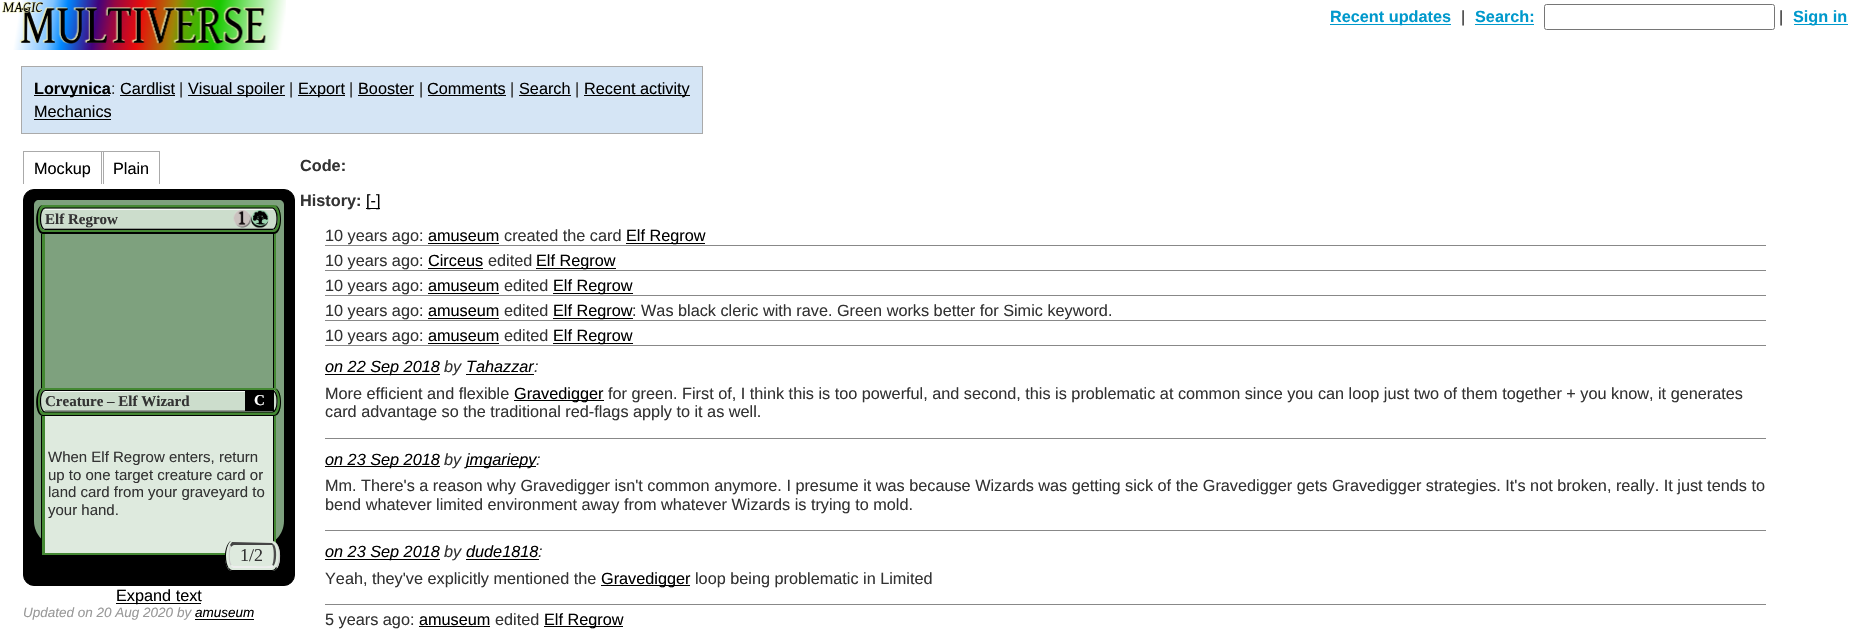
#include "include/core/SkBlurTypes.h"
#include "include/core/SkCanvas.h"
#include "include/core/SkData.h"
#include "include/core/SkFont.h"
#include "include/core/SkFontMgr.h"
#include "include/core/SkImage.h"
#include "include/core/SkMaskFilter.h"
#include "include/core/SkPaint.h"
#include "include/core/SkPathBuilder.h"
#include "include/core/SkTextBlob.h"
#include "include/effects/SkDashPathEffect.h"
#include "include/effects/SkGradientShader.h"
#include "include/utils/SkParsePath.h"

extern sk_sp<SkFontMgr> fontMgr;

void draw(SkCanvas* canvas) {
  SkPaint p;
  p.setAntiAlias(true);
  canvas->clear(SK_ColorWHITE);
  canvas->drawImageRect(SkImages::DeferredFromEncodedData(SkData::MakeFromFileName("images/1.png")), SkRect::MakeLTRB(2, 0, 286, 50), SkSamplingOptions());
  p.setColor(SkColorSetRGB(0, 153, 204));
  canvas->drawRect(SkRect::MakeLTRB(1330, 24, 1451, 25), p);
  canvas->drawRect(SkRect::MakeLTRB(1475, 24, 1534, 25), p);
  p.setStyle(SkPaint::kStroke_Style);
  p.setStrokeWidth(1);
  p.setColor(SkColorSetRGB(118, 118, 118));
  canvas->drawRoundRect(SkRect::MakeLTRB(1544.5f, 4.5f, 1774.5f, 29.5f), 2, 2, p);
  p.setStyle(SkPaint::kFill_Style);
  p.setColor(SkColorSetRGB(0, 153, 204));
  canvas->drawRect(SkRect::MakeLTRB(1794, 24, 1848, 25), p);
  p.setColor(SkColorSetRGB(213, 229, 245));
  canvas->drawRect(SkRect::MakeLTRB(21.5f, 66.5f, 702.5f, 133.5f), p);
  p.setStyle(SkPaint::kStroke_Style);
  p.setColor(SkColorSetRGB(170, 170, 170));
  canvas->drawRect(SkRect::MakeLTRB(21.5f, 66.5f, 702.5f, 133.5f), p);
  p.setStyle(SkPaint::kFill_Style);
  p.setColor(SK_ColorBLACK);
  canvas->drawRect(SkRect::MakeLTRB(34, 95, 110, 96), p);
  canvas->drawRect(SkRect::MakeLTRB(120, 95, 175, 96), p);
  canvas->drawRect(SkRect::MakeLTRB(188, 95, 285, 96), p);
  canvas->drawRect(SkRect::MakeLTRB(298, 95, 345, 96), p);
  canvas->drawRect(SkRect::MakeLTRB(358, 95, 414, 96), p);
  canvas->drawRect(SkRect::MakeLTRB(428, 95, 506, 96), p);
  canvas->drawRect(SkRect::MakeLTRB(519, 95, 571, 96), p);
  canvas->drawRect(SkRect::MakeLTRB(584, 95, 690, 96), p);
  canvas->drawRect(SkRect::MakeLTRB(34, 119, 111, 120), p);
  p.setColor(SkColorSetRGB(170, 170, 170));
  canvas->drawRect(SkRect::MakeLTRB(23, 151, 160, 152), p);
  canvas->drawRect(SkRect::MakeLTRB(101, 151, 102, 184), p);
  canvas->drawRect(SkRect::MakeLTRB(23, 151, 24, 184), p);
  canvas->drawRect(SkRect::MakeLTRB(159, 151, 160, 184), p);
  canvas->drawRect(SkRect::MakeLTRB(103, 151, 104, 184), p);
  p.setColor(SK_ColorBLACK);
  canvas->drawRoundRect(SkRect::MakeLTRB(23.5f, 189.5f, 294.5f, 585.5f), 10.5f, 10.5f, p);
  p.setStyle(SkPaint::kStroke_Style);
  canvas->drawRoundRect(SkRect::MakeLTRB(23.5f, 189.5f, 294.5f, 585.5f), 10.5f, 10.5f, p);
  p.setStyle(SkPaint::kFill_Style);
  p.setColor(SkColorSetRGB(126, 161, 126));
  canvas->drawPath(SkPathBuilder().moveTo(39, 200).lineTo(279, 200).cubicTo(282, 200, 284, 202, 284, 205).lineTo(284, 521).cubicTo(284, 535, 273, 546, 259, 546).lineTo(59, 546).cubicTo(45, 546, 34, 535, 34, 521).lineTo(34, 205).cubicTo(34, 202, 36, 200, 39, 200).close().detach(), p);
  p.setColor(SkColorSetRGB(68, 136, 51));
  canvas->drawPath(SkPathBuilder().moveTo(43, 205).lineTo(274, 205).cubicTo(280, 205, 281, 215, 281, 219).cubicTo(281, 223, 280, 234, 274, 234).lineTo(43, 234).cubicTo(34, 234, 34, 205, 43, 205).close().detach(), p);
  p.setColor(SK_ColorBLACK);
  canvas->drawPath(SkPathBuilder(SkPathFillType::kEvenOdd).moveTo(43, 205).lineTo(274, 205).cubicTo(280, 205, 281, 215, 281, 219).cubicTo(281, 223, 280, 234, 274, 234).lineTo(43, 234).cubicTo(34, 234, 34, 205, 43, 205).close().moveTo(43, 205).lineTo(274, 205).cubicTo(277, 205, 280, 211, 280, 219).cubicTo(280, 227, 277, 232, 274, 232).lineTo(43, 232).cubicTo(40, 232, 38, 227, 38, 219).cubicTo(38, 211, 40, 205, 43, 205).close().detach(), p);
  p.setColor(SkColorSetRGB(204, 221, 204));
  canvas->drawPath(SkPathBuilder().moveTo(45, 208).lineTo(274, 208).cubicTo(276, 209, 277, 213, 277, 215).cubicTo(278, 219, 278, 230, 272, 230).lineTo(45, 230).cubicTo(43, 230, 42, 228, 41, 227).cubicTo(40, 223, 39, 208, 45, 208).close().detach(), p);
  p.setStyle(SkPaint::kStroke_Style);
  p.setStrokeWidth(1.2f);
  p.setColor(SK_ColorBLACK);
  canvas->drawPath(SkPathBuilder().moveTo(45, 208).lineTo(272.5f, 208).cubicTo(275, 208, 277, 212.5f, 277, 217.5f).lineTo(277, 220).cubicTo(277, 225, 275, 229.5f, 272.5f, 229.5f).lineTo(45, 229.5f).cubicTo(42.5f, 229.5f, 40.5f, 225, 40.5f, 220).lineTo(40.5f, 217.5f).cubicTo(40.5f, 212.5f, 42.5f, 208, 45, 208).close().detach(), p);
  p.setStyle(SkPaint::kFill_Style);
  p.setColor(SkColorSetRGB(245, 248, 245));
  canvas->drawRect(SkRect::MakeLTRB(45, 209, 273, 210), p);
  canvas->drawImageRect(SkImages::DeferredFromEncodedData(SkData::MakeFromFileName("images/2.png")), SkRect::MakeLTRB(233, 210, 252, 228), SkSamplingOptions());
  canvas->drawImageRect(SkImages::DeferredFromEncodedData(SkData::MakeFromFileName("images/3.png")), SkRect::MakeLTRB(251, 210, 269, 228), SkSamplingOptions());
  p.setColor(SkColorSetARGB(128, 88, 88, 88));
  canvas->drawRect(SkRect::MakeLTRB(45, 228, 273, 229), p);
  p.setColor(SkColorSetRGB(68, 136, 51));
  canvas->drawRect(SkRect::MakeLTRB(42, 234, 276, 388), p);
  p.setColor(SK_ColorBLACK);
  canvas->drawRect(SkRect::MakeLTRB(41, 234, 42, 388), p);
  p.setColor(SkColorSetRGB(126, 161, 126));
  canvas->drawRect(SkRect::MakeLTRB(45, 234, 273, 388), p);
  p.setColor(SK_ColorBLACK);
  canvas->drawRect(SkRect::MakeLTRB(273, 234, 274, 388), p);
  p.setColor(SkColorSetRGB(68, 136, 51));
  canvas->drawPath(SkPathBuilder().moveTo(43, 388).lineTo(274, 388).cubicTo(280, 388, 281, 398, 281, 402).cubicTo(281, 406, 280, 416, 274, 416).lineTo(43, 416).cubicTo(34, 416, 34, 388, 43, 388).close().detach(), p);
  p.setColor(SK_ColorBLACK);
  canvas->drawPath(SkPathBuilder(SkPathFillType::kEvenOdd).moveTo(43, 388).lineTo(274, 388).cubicTo(280, 388, 281, 398, 281, 402).cubicTo(281, 406, 280, 416, 274, 416).lineTo(43, 416).cubicTo(34, 416, 34, 388, 43, 388).close().moveTo(43, 388).lineTo(274, 388).cubicTo(277, 388, 280, 394, 280, 402).cubicTo(280, 409, 277, 415, 274, 415).lineTo(43, 415).cubicTo(40, 415, 38, 409, 38, 402).cubicTo(38, 394, 40, 388, 43, 388).close().detach(), p);
  p.setColor(SkColorSetRGB(204, 221, 204));
  canvas->drawPath(SkPathBuilder().moveTo(45, 390).lineTo(274, 390).cubicTo(276, 391, 277, 395, 277, 398).cubicTo(278, 401, 278, 412, 272, 412).lineTo(45, 412).cubicTo(43, 412, 42, 411, 41, 410).cubicTo(40, 406, 39, 390, 45, 390).close().detach(), p);
  p.setStyle(SkPaint::kStroke_Style);
  p.setColor(SK_ColorBLACK);
  canvas->drawPath(SkPathBuilder().moveTo(45, 390.5f).lineTo(272.5f, 390.5f).cubicTo(275, 390.5f, 277, 395, 277, 400).lineTo(277, 402.5f).cubicTo(277, 407.5f, 275, 412, 272.5f, 412).lineTo(45, 412).cubicTo(42.5f, 412, 40.5f, 407.5f, 40.5f, 402.5f).lineTo(40.5f, 400).cubicTo(40.5f, 395, 42.5f, 390.5f, 45, 390.5f).close().detach(), p);
  p.setStyle(SkPaint::kFill_Style);
  p.setColor(SkColorSetARGB(204, 255, 255, 255));
  canvas->drawRect(SkRect::MakeLTRB(45, 391, 245, 392), p);
  p.setColor(SK_ColorBLACK);
  canvas->drawRect(SkRect::MakeLTRB(245, 390, 274, 411), p);
  p.setColor(SkColorSetRGB(146, 155, 146));
  canvas->drawRect(SkRect::MakeLTRB(45, 410, 245, 411), p);
  p.setColor(SkColorSetRGB(68, 136, 51));
  canvas->drawRect(SkRect::MakeLTRB(42, 416, 276, 555), p);
  p.setColor(SK_ColorBLACK);
  canvas->drawRect(SkRect::MakeLTRB(41, 416, 42, 540), p);
  p.setColor(SkColorSetRGB(222, 234, 222));
  canvas->drawRect(SkRect::MakeLTRB(45, 416, 273, 553), p);
  p.setColor(SK_ColorBLACK);
  canvas->drawRect(SkRect::MakeLTRB(273, 416, 274, 542), p);
  p.setColor(SkColorSetRGB(222, 234, 222));
  canvas->drawPath(SkPathBuilder().moveTo(232, 541).lineTo(272, 541).cubicTo(277, 541, 280, 548, 280, 556).cubicTo(280, 565, 277, 571, 272, 571).lineTo(232, 571).cubicTo(228, 571, 225, 565, 225, 556).cubicTo(225, 548, 228, 541, 232, 541).close().detach(), p);
  p.setColor(SkColorSetRGB(204, 204, 204));
  canvas->drawPath(SkPathBuilder().moveTo(276, 567.5f).cubicTo(280, 562, 280.5f, 544, 273.5f, 541).cubicTo(274.5f, 541, 275.5f, 542.5f, 276.5f, 543).cubicTo(281, 548.5f, 281.5f, 562.5f, 277, 568.5f).close().detach(), p);
  p.setColor(SK_ColorBLACK);
  canvas->drawPath(SkPathBuilder().moveTo(277, 568).cubicTo(276, 570, 274, 571, 272, 571).lineTo(232, 571).cubicTo(230, 571, 229, 570, 228, 568).lineTo(229, 568).cubicTo(230, 569, 231, 570, 232, 570).lineTo(272, 570).cubicTo(274, 570, 275, 569, 276, 567).close().detach(), p);
  canvas->drawPath(SkPathBuilder().moveTo(231, 541).cubicTo(228.5f, 542.5f, 226, 549, 226, 556).cubicTo(226, 561, 227, 565, 228.5f, 567.5f).lineTo(228, 568.5f).cubicTo(223.5f, 562.5f, 224, 549, 228.5f, 543).cubicTo(229, 542.5f, 230, 541, 231, 541).close().detach(), p);
  p.setColor(SkColorSetRGB(68, 68, 68));
  canvas->drawPath(SkPathBuilder().moveTo(234, 545).cubicTo(233, 545, 232, 546, 231, 547).lineTo(230, 545).lineTo(232, 542).lineTo(272, 543).lineTo(274, 545).lineTo(273, 546).lineTo(272, 545).close().detach(), p);
  p.setColor(SkColorSetRGB(76, 76, 76));
  canvas->drawPath(SkPathBuilder().moveTo(274, 544.5f).cubicTo(277, 548.5f, 277, 562, 273.5f, 566).lineTo(272, 565.5f).cubicTo(274, 562.5f, 274.5f, 550, 272.5f, 546).close().detach(), p);
  p.setColor(SkColorSetRGB(238, 238, 238));
  canvas->drawPath(SkPathBuilder().moveTo(233, 568).lineTo(231, 566).lineTo(232, 565).cubicTo(233, 566, 234, 566, 235, 566).lineTo(254, 566).cubicTo(257, 566, 271, 567, 272, 565).lineTo(274, 566).lineTo(272, 568).close().detach(), p);
  p.setColor(SkColorSetRGB(204, 204, 204));
  canvas->drawPath(SkPathBuilder().moveTo(230.5f, 565.5f).cubicTo(228, 562, 228.5f, 548.5f, 230, 545).lineTo(231, 547).cubicTo(229.5f, 550, 229, 561.5f, 231.5f, 564.5f).close().detach(), p);
  p.setColor(SK_ColorBLACK);
  canvas->drawRect(SkRect::MakeLTRB(116, 603, 201, 604), p);
  canvas->drawRect(SkRect::MakeLTRB(195, 619, 254, 620), p);
  canvas->drawRect(SkRect::MakeLTRB(366, 208, 380, 209), p);
  p.setColor(SkColorSetRGB(136, 136, 136));
  canvas->drawRect(SkRect::MakeLTRB(325, 245, 1766, 246), p);
  p.setColor(SK_ColorBLACK);
  canvas->drawRect(SkRect::MakeLTRB(428, 243, 499, 244), p);
  canvas->drawRect(SkRect::MakeLTRB(626, 243, 705, 244), p);
  p.setColor(SkColorSetRGB(136, 136, 136));
  canvas->drawRect(SkRect::MakeLTRB(325, 270, 1766, 271), p);
  p.setColor(SK_ColorBLACK);
  canvas->drawRect(SkRect::MakeLTRB(428, 268, 483, 269), p);
  canvas->drawRect(SkRect::MakeLTRB(536, 268, 616, 269), p);
  p.setColor(SkColorSetRGB(136, 136, 136));
  canvas->drawRect(SkRect::MakeLTRB(325, 295, 1766, 296), p);
  p.setColor(SK_ColorBLACK);
  canvas->drawRect(SkRect::MakeLTRB(428, 293, 499, 294), p);
  canvas->drawRect(SkRect::MakeLTRB(553, 293, 633, 294), p);
  p.setColor(SkColorSetRGB(136, 136, 136));
  canvas->drawRect(SkRect::MakeLTRB(325, 320, 1766, 321), p);
  p.setColor(SK_ColorBLACK);
  canvas->drawRect(SkRect::MakeLTRB(428, 318, 499, 319), p);
  canvas->drawRect(SkRect::MakeLTRB(553, 318, 633, 319), p);
  p.setColor(SkColorSetRGB(136, 136, 136));
  canvas->drawRect(SkRect::MakeLTRB(325, 345, 1766, 346), p);
  p.setColor(SK_ColorBLACK);
  canvas->drawRect(SkRect::MakeLTRB(428, 343, 499, 344), p);
  canvas->drawRect(SkRect::MakeLTRB(553, 343, 633, 344), p);
  p.setColor(SkColorSetRGB(136, 136, 136));
  canvas->drawRect(SkRect::MakeLTRB(325, 438, 1766, 439), p);
  p.setColor(SK_ColorBLACK);
  canvas->drawRect(SkRect::MakeLTRB(325, 374, 440, 375), p);
  canvas->drawRect(SkRect::MakeLTRB(466, 374, 534, 375), p);
  canvas->drawRect(SkRect::MakeLTRB(514, 400, 604, 401), p);
  p.setColor(SkColorSetRGB(136, 136, 136));
  canvas->drawRect(SkRect::MakeLTRB(325, 530, 1766, 531), p);
  p.setColor(SK_ColorBLACK);
  canvas->drawRect(SkRect::MakeLTRB(325, 466, 440, 467), p);
  canvas->drawRect(SkRect::MakeLTRB(466, 466, 536, 467), p);
  p.setColor(SkColorSetRGB(136, 136, 136));
  canvas->drawRect(SkRect::MakeLTRB(325, 604, 1766, 605), p);
  p.setColor(SK_ColorBLACK);
  canvas->drawRect(SkRect::MakeLTRB(325, 559, 440, 560), p);
  canvas->drawRect(SkRect::MakeLTRB(466, 559, 539, 560), p);
  canvas->drawRect(SkRect::MakeLTRB(601, 585, 690, 586), p);
  canvas->drawRect(SkRect::MakeLTRB(419, 626, 490, 627), p);
  canvas->drawRect(SkRect::MakeLTRB(544, 626, 623, 627), p);
  SkFont font1(fontMgr->matchFamilyStyle("Liberation Sans", SkFontStyle::Bold()), 16.25f);
  font1.setSubpixel(true);
  p.setColor(SkColorSetRGB(0, 153, 204));
  canvas->drawString("Recent updates", 1330, 22, font1, p);
  SkFont font2(fontMgr->matchFamilyStyle("Liberation Sans", SkFontStyle::Normal()), 16.25f);
  font2.setSubpixel(true);
  p.setColor(SkColorSetRGB(51, 51, 51));
  canvas->drawString("|", 1461, 22, font2, p);
  p.setColor(SkColorSetRGB(0, 153, 204));
  canvas->drawString("Search:", 1475, 22, font1, p);
  p.setColor(SkColorSetRGB(51, 51, 51));
  canvas->drawString("|", 1779, 22, font2, p);
  p.setColor(SkColorSetRGB(0, 153, 204));
  canvas->drawString("Sign in", 1793, 22, font1, p);
  p.setColor(SK_ColorBLACK);
  canvas->drawString("Lorvynica", 34, 94, font1, p);
  p.setColor(SkColorSetRGB(51, 51, 51));
  canvas->drawString(":", 111, 94, font2, p);
  p.setColor(SK_ColorBLACK);
  canvas->drawString("Cardlist", 120, 94, font2, p);
  p.setColor(SkColorSetRGB(51, 51, 51));
  canvas->drawString("|", 179, 94, font2, p);
  p.setColor(SK_ColorBLACK);
  canvas->drawString("Visual spoiler", 188, 94, font2, p);
  p.setColor(SkColorSetRGB(51, 51, 51));
  canvas->drawString("|", 289, 94, font2, p);
  p.setColor(SK_ColorBLACK);
  canvas->drawString("Export", 298, 94, font2, p);
  p.setColor(SkColorSetRGB(51, 51, 51));
  canvas->drawString("|", 349, 94, font2, p);
  p.setColor(SK_ColorBLACK);
  canvas->drawString("Booster", 358, 94, font2, p);
  p.setColor(SkColorSetRGB(51, 51, 51));
  canvas->drawString("|", 419, 94, font2, p);
  p.setColor(SK_ColorBLACK);
  canvas->drawString("Comments", 427, 94, font2, p);
  p.setColor(SkColorSetRGB(51, 51, 51));
  canvas->drawString("|", 510, 94, font2, p);
  p.setColor(SK_ColorBLACK);
  canvas->drawString("Search", 519, 94, font2, p);
  p.setColor(SkColorSetRGB(51, 51, 51));
  canvas->drawString("|", 575, 94, font2, p);
  p.setColor(SK_ColorBLACK);
  canvas->drawString("Recent activity", 584, 94, font2, p);
  canvas->drawString("Mechanics", 34, 117, font2, p);
  canvas->drawString("Mockup", 34, 174, font2, p);
  canvas->drawString("Plain", 113, 174, font2, p);
  SkFont font3(fontMgr->matchFamilyStyle("Liberation Serif", SkFontStyle::Bold()), 15);
  font3.setSubpixel(true);
  p.setColor(SkColorSetRGB(51, 51, 51));
  canvas->drawString("Elf Regrow", 45, 224, font3, p);
  canvas->drawString("Creature – Elf Wizard", 45, 406, font3, p);
  p.setColor(SK_ColorWHITE);
  canvas->drawString("C", 254, 405, font3, p);
  SkFont font4(fontMgr->matchFamilyStyle("Liberation Sans", SkFontStyle::Normal()), 15);
  font4.setSubpixel(true);
  p.setColor(SkColorSetRGB(51, 51, 51));
  canvas->drawString("When Elf Regrow enters, return", 48, 462, font4, p);
  canvas->drawString("up to one target creature card or", 48, 480, font4, p);
  canvas->drawString("land card from your graveyard to", 48, 497, font4, p);
  canvas->drawString("your hand.", 48, 515, font4, p);
  SkFont font5(fontMgr->matchFamilyStyle("Liberation Serif", SkFontStyle::Normal()), 18);
  font5.setSubpixel(true);
  canvas->drawString("1/2", 240, 561, font5, p);
  p.setColor(SK_ColorBLACK);
  canvas->drawString("Expand text", 116, 601, font2, p);
  SkFont font6(fontMgr->matchFamilyStyle("Liberation Sans", SkFontStyle::Italic()), 13.5f);
  font6.setSubpixel(true);
  p.setColor(SkColorSetRGB(153, 153, 153));
  canvas->drawString("Updated on 20 Aug 2020 by", 23, 617, font6, p);
  p.setColor(SK_ColorBLACK);
  canvas->drawString("amuseum", 195, 617, font6, p);
  p.setColor(SkColorSetRGB(51, 51, 51));
  canvas->drawString("Code:", 300, 171, font1, p);
  canvas->drawString("History:", 300, 206, font1, p);
  p.setColor(SK_ColorBLACK);
  canvas->drawString("[-]", 366, 206, font2, p);
  p.setColor(SkColorSetRGB(51, 51, 51));
  canvas->drawString("10 years ago:", 325, 241, font2, p);
  p.setColor(SK_ColorBLACK);
  canvas->drawString("amuseum", 428, 241, font2, p);
  p.setColor(SkColorSetRGB(51, 51, 51));
  canvas->drawString("created the card", 504, 241, font2, p);
  p.setColor(SK_ColorBLACK);
  canvas->drawString("Elf Regrow", 626, 241, font2, p);
  p.setColor(SkColorSetRGB(51, 51, 51));
  canvas->drawString("10 years ago:", 325, 266, font2, p);
  p.setColor(SK_ColorBLACK);
  canvas->drawString("Circeus", 428, 266, font2, p);
  p.setColor(SkColorSetRGB(51, 51, 51));
  canvas->drawString("edited", 488, 266, font2, p);
  p.setColor(SK_ColorBLACK);
  canvas->drawString("Elf Regrow", 536, 266, font2, p);
  p.setColor(SkColorSetRGB(51, 51, 51));
  canvas->drawString("10 years ago:", 325, 291, font2, p);
  p.setColor(SK_ColorBLACK);
  canvas->drawString("amuseum", 428, 291, font2, p);
  p.setColor(SkColorSetRGB(51, 51, 51));
  canvas->drawString("edited", 504, 291, font2, p);
  p.setColor(SK_ColorBLACK);
  canvas->drawString("Elf Regrow", 553, 291, font2, p);
  p.setColor(SkColorSetRGB(51, 51, 51));
  canvas->drawString("10 years ago:", 325, 316, font2, p);
  p.setColor(SK_ColorBLACK);
  canvas->drawString("amuseum", 428, 316, font2, p);
  p.setColor(SkColorSetRGB(51, 51, 51));
  canvas->drawString("edited", 504, 316, font2, p);
  p.setColor(SK_ColorBLACK);
  canvas->drawString("Elf Regrow", 553, 316, font2, p);
  p.setColor(SkColorSetRGB(51, 51, 51));
  canvas->drawString(": Was black cleric with rave. Green works better for Simic keyword.", 632, 316, font2, p);
  canvas->drawString("10 years ago:", 325, 341, font2, p);
  p.setColor(SK_ColorBLACK);
  canvas->drawString("amuseum", 428, 341, font2, p);
  p.setColor(SkColorSetRGB(51, 51, 51));
  canvas->drawString("edited", 504, 341, font2, p);
  p.setColor(SK_ColorBLACK);
  canvas->drawString("Elf Regrow", 553, 341, font2, p);
  SkFont font7(fontMgr->matchFamilyStyle("Liberation Sans", SkFontStyle::Italic()), 16.25f);
  font7.setSubpixel(true);
  canvas->drawString("on 22 Sep 2018", 325, 372, font7, p);
  p.setColor(SkColorSetRGB(51, 51, 51));
  canvas->drawString("by", 444, 372, font7, p);
  p.setColor(SK_ColorBLACK);
  canvas->drawString("Tahazzar", 466, 372, font7, p);
  p.setColor(SkColorSetRGB(51, 51, 51));
  canvas->drawString(":", 534, 372, font7, p);
  canvas->drawString("More efficient and flexible", 325, 399, font2, p);
  p.setColor(SK_ColorBLACK);
  canvas->drawString("Gravedigger", 514, 399, font2, p);
  p.setColor(SkColorSetRGB(51, 51, 51));
  canvas->drawString("for green. First of, I think this is too powerful, and second, this is problematic at common since you can loop just two of them together + you know, it generates", 608, 399, font2, p);
  canvas->drawString("card advantage so the traditional red-flags apply to it as well.", 325, 417, font2, p);
  p.setColor(SK_ColorBLACK);
  canvas->drawString("on 23 Sep 2018", 325, 465, font7, p);
  p.setColor(SkColorSetRGB(51, 51, 51));
  canvas->drawString("by", 444, 465, font7, p);
  p.setColor(SK_ColorBLACK);
  canvas->drawString("jmgariepy", 466, 465, font7, p);
  p.setColor(SkColorSetRGB(51, 51, 51));
  canvas->drawString(":", 536, 465, font7, p);
  canvas->drawString("Mm. There's a reason why Gravedigger isn't common anymore. I presume it was because Wizards was getting sick of the Gravedigger gets Gravedigger strategies. It's not broken, really. It just tends to", 325, 491, font2, p);
  canvas->drawString("bend whatever limited environment away from whatever Wizards is trying to mold.", 325, 510, font2, p);
  p.setColor(SK_ColorBLACK);
  canvas->drawString("on 23 Sep 2018", 325, 557, font7, p);
  p.setColor(SkColorSetRGB(51, 51, 51));
  canvas->drawString("by", 444, 557, font7, p);
  p.setColor(SK_ColorBLACK);
  canvas->drawString("dude1818", 466, 557, font7, p);
  p.setColor(SkColorSetRGB(51, 51, 51));
  canvas->drawString(":", 538, 557, font7, p);
  canvas->drawString("Yeah, they've explicitly mentioned the", 325, 584, font2, p);
  p.setColor(SK_ColorBLACK);
  canvas->drawString("Gravedigger", 601, 584, font2, p);
  p.setColor(SkColorSetRGB(51, 51, 51));
  canvas->drawString("loop being problematic in Limited", 695, 584, font2, p);
  canvas->drawString("5 years ago:", 325, 625, font2, p);
  p.setColor(SK_ColorBLACK);
  canvas->drawString("amuseum", 419, 625, font2, p);
  p.setColor(SkColorSetRGB(51, 51, 51));
  canvas->drawString("edited", 495, 625, font2, p);
  p.setColor(SK_ColorBLACK);
  canvas->drawString("Elf Regrow", 544, 625, font2, p);
}
